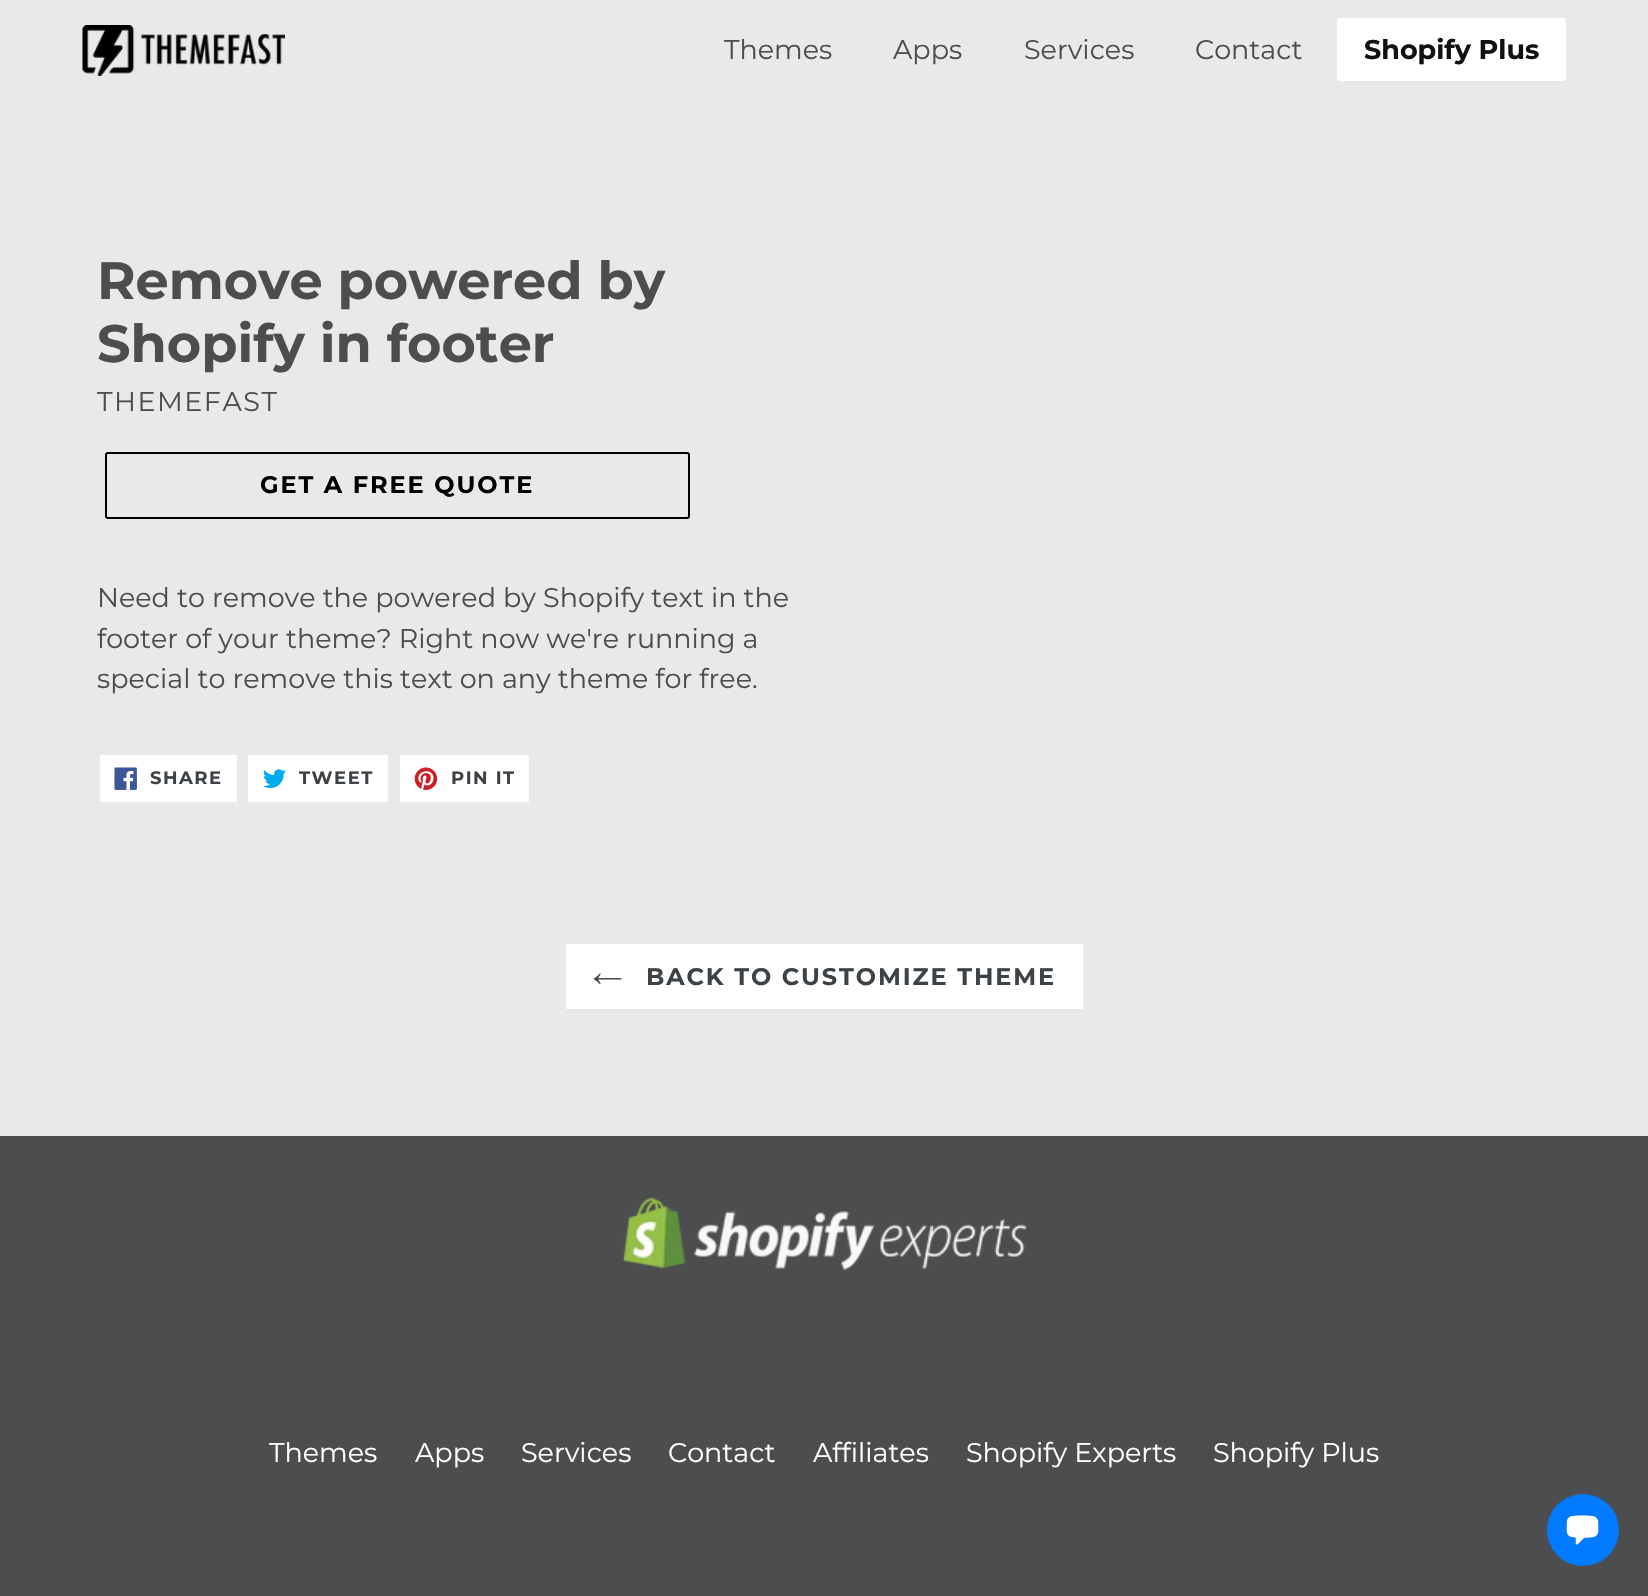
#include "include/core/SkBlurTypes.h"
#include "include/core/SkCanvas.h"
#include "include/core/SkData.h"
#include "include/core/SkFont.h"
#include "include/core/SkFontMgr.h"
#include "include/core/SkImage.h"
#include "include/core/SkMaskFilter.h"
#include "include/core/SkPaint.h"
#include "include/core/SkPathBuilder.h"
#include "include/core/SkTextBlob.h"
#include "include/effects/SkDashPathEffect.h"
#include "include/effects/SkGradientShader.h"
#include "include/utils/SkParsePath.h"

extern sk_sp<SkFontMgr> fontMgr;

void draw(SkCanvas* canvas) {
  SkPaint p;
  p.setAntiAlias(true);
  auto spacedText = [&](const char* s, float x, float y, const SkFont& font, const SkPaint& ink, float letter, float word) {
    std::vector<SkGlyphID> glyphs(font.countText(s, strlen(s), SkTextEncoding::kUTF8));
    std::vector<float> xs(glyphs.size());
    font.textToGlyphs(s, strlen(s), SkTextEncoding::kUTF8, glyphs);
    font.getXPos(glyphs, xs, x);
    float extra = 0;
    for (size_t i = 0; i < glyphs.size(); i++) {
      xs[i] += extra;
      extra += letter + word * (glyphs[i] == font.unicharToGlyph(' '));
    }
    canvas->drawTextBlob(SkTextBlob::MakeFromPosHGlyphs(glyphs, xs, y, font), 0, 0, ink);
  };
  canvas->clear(SkColorSetRGB(232, 233, 235));
  canvas->drawImageRect(SkImages::DeferredFromEncodedData(SkData::MakeFromFileName("images/1.png")), SkRect::MakeLTRB(82, 25, 285, 76), SkSamplingOptions());
  p.setColor(SK_ColorWHITE);
  canvas->drawRoundRect(SkRect::MakeLTRB(1337, 18, 1566, 81), 3, 3, p);
  p.setStyle(SkPaint::kStroke_Style);
  p.setStrokeWidth(2);
  p.setColor(SK_ColorBLACK);
  canvas->drawRoundRect(SkRect::MakeLTRB(106, 453, 689, 518), 2, 2, p);
  p.setStyle(SkPaint::kFill_Style);
  p.setColor(SK_ColorWHITE);
  canvas->drawRoundRect(SkRect::MakeLTRB(99, 754, 238, 803), 2, 2, p);
  p.setStyle(SkPaint::kStroke_Style);
  p.setColor(SkColorSetRGB(232, 233, 235));
  canvas->drawRoundRect(SkRect::MakeLTRB(99, 754, 238, 803), 2, 2, p);
  canvas->drawImageRect(SkImages::DeferredFromEncodedData(SkData::MakeFromFileName("images/2.png")), SkRect::MakeLTRB(114, 767, 137, 790), SkSamplingOptions());
  p.setStyle(SkPaint::kFill_Style);
  p.setColor(SK_ColorWHITE);
  canvas->drawRoundRect(SkRect::MakeLTRB(247, 754, 389, 803), 2, 2, p);
  p.setStyle(SkPaint::kStroke_Style);
  p.setColor(SkColorSetRGB(232, 233, 235));
  canvas->drawRoundRect(SkRect::MakeLTRB(247, 754, 389, 803), 2, 2, p);
  canvas->drawImageRect(SkImages::DeferredFromEncodedData(SkData::MakeFromFileName("images/3.png")), SkRect::MakeLTRB(263, 769, 286, 789), SkSamplingOptions());
  p.setStyle(SkPaint::kFill_Style);
  p.setColor(SK_ColorWHITE);
  canvas->drawRoundRect(SkRect::MakeLTRB(399, 754, 530, 803), 2, 2, p);
  p.setStyle(SkPaint::kStroke_Style);
  p.setColor(SkColorSetRGB(232, 233, 235));
  canvas->drawRoundRect(SkRect::MakeLTRB(399, 754, 530, 803), 2, 2, p);
  canvas->drawImageRect(SkImages::DeferredFromEncodedData(SkData::MakeFromFileName("images/4.png")), SkRect::MakeLTRB(414, 767, 438, 790), SkSamplingOptions());
  p.setStyle(SkPaint::kFill_Style);
  p.setColor(SK_ColorWHITE);
  canvas->drawRoundRect(SkRect::MakeLTRB(565, 943, 1084, 1010), 2, 2, p);
  p.setStyle(SkPaint::kStroke_Style);
  p.setColor(SkColorSetRGB(232, 233, 235));
  canvas->drawRoundRect(SkRect::MakeLTRB(565, 943, 1084, 1010), 2, 2, p);
  canvas->drawImageRect(SkImages::DeferredFromEncodedData(SkData::MakeFromFileName("images/5.png")), SkRect::MakeLTRB(593, 973, 622, 985), SkSamplingOptions());
  p.setStyle(SkPaint::kFill_Style);
  p.setColor(SkColorSetRGB(76, 77, 79));
  canvas->drawRect(SkRect::MakeLTRB(0, 1136, 1648, 1596), p);
  canvas->drawImageRect(SkImages::DeferredFromEncodedData(SkData::MakeFromFileName("images/6.png")), SkRect::MakeLTRB(622, 1197, 1027, 1271), SkSamplingOptions());
  p.setColor(SkColorSetRGB(0, 123, 255));
  canvas->drawCircle(1583, 1530, 36, p);
  canvas->drawImageRect(SkImages::DeferredFromEncodedData(SkData::MakeFromFileName("images/7.png")), SkRect::MakeLTRB(1566, 1515, 1599, 1545), SkSamplingOptions());
  SkFont font1(fontMgr->matchFamilyStyle("Montserrat", SkFontStyle::Normal()), 27);
  font1.setSubpixel(true);
  p.setColor(SkColorSetRGB(76, 77, 79));
  canvas->drawString("Themes", 724, 59, font1, p);
  canvas->drawString("Apps", 893, 59, font1, p);
  canvas->drawString("Services", 1024, 59, font1, p);
  canvas->drawString("Contact", 1195, 59, font1, p);
  SkFont font2(fontMgr->matchFamilyStyle("Montserrat", SkFontStyle::Bold()), 27);
  font2.setSubpixel(true);
  p.setColor(SkColorSetRGB(17, 17, 17));
  canvas->drawString("Shopify Plus", 1364, 59, font2, p);
  SkFont font3(fontMgr->matchFamilyStyle("Montserrat", SkFontStyle::Bold()), 52.5f);
  font3.setSubpixel(true);
  p.setColor(SkColorSetRGB(76, 77, 79));
  canvas->drawString("Remove powered by", 97, 299, font3, p);
  canvas->drawString("Shopify in footer", 97, 362, font3, p);
  spacedText("THEMEFAST", 97, 411, font1, p, 1.5f, 0);
  SkFont font4(fontMgr->matchFamilyStyle("Montserrat", SkFontStyle::Bold()), 24);
  font4.setSubpixel(true);
  p.setColor(SK_ColorBLACK);
  spacedText("GET A FREE QUOTE", 260, 493, font4, p, 1.9f, 0);
  p.setColor(SkColorSetRGB(76, 77, 79));
  canvas->drawString("Need to remove the powered by Shopify text in the", 97, 607, font1, p);
  canvas->drawString("footer of your theme? Right now we're running a", 97, 648, font1, p);
  canvas->drawString("special to remove this text on any theme for free.", 97, 688, font1, p);
  SkFont font5(fontMgr->matchFamilyStyle("Montserrat", SkFontStyle::Bold()), 18);
  font5.setSubpixel(true);
  p.setColor(SkColorSetRGB(61, 66, 70));
  spacedText("SHARE", 150, 784, font5, p, 1.5f, 0);
  spacedText("TWEET", 299, 784, font5, p, 1.5f, 0);
  spacedText("PIN IT", 451, 784, font5, p, 1.5f, 0);
  spacedText("BACK TO CUSTOMIZE THEME", 646, 985, font4, p, 1.9f, 0);
  p.setColor(SK_ColorWHITE);
  canvas->drawString("Themes", 269, 1462, font1, p);
  canvas->drawString("Apps", 415, 1462, font1, p);
  canvas->drawString("Services", 521, 1462, font1, p);
  canvas->drawString("Contact", 668, 1462, font1, p);
  canvas->drawString("Affiliates", 813, 1462, font1, p);
  canvas->drawString("Shopify Experts", 966, 1462, font1, p);
  canvas->drawString("Shopify Plus", 1213, 1462, font1, p);
}
